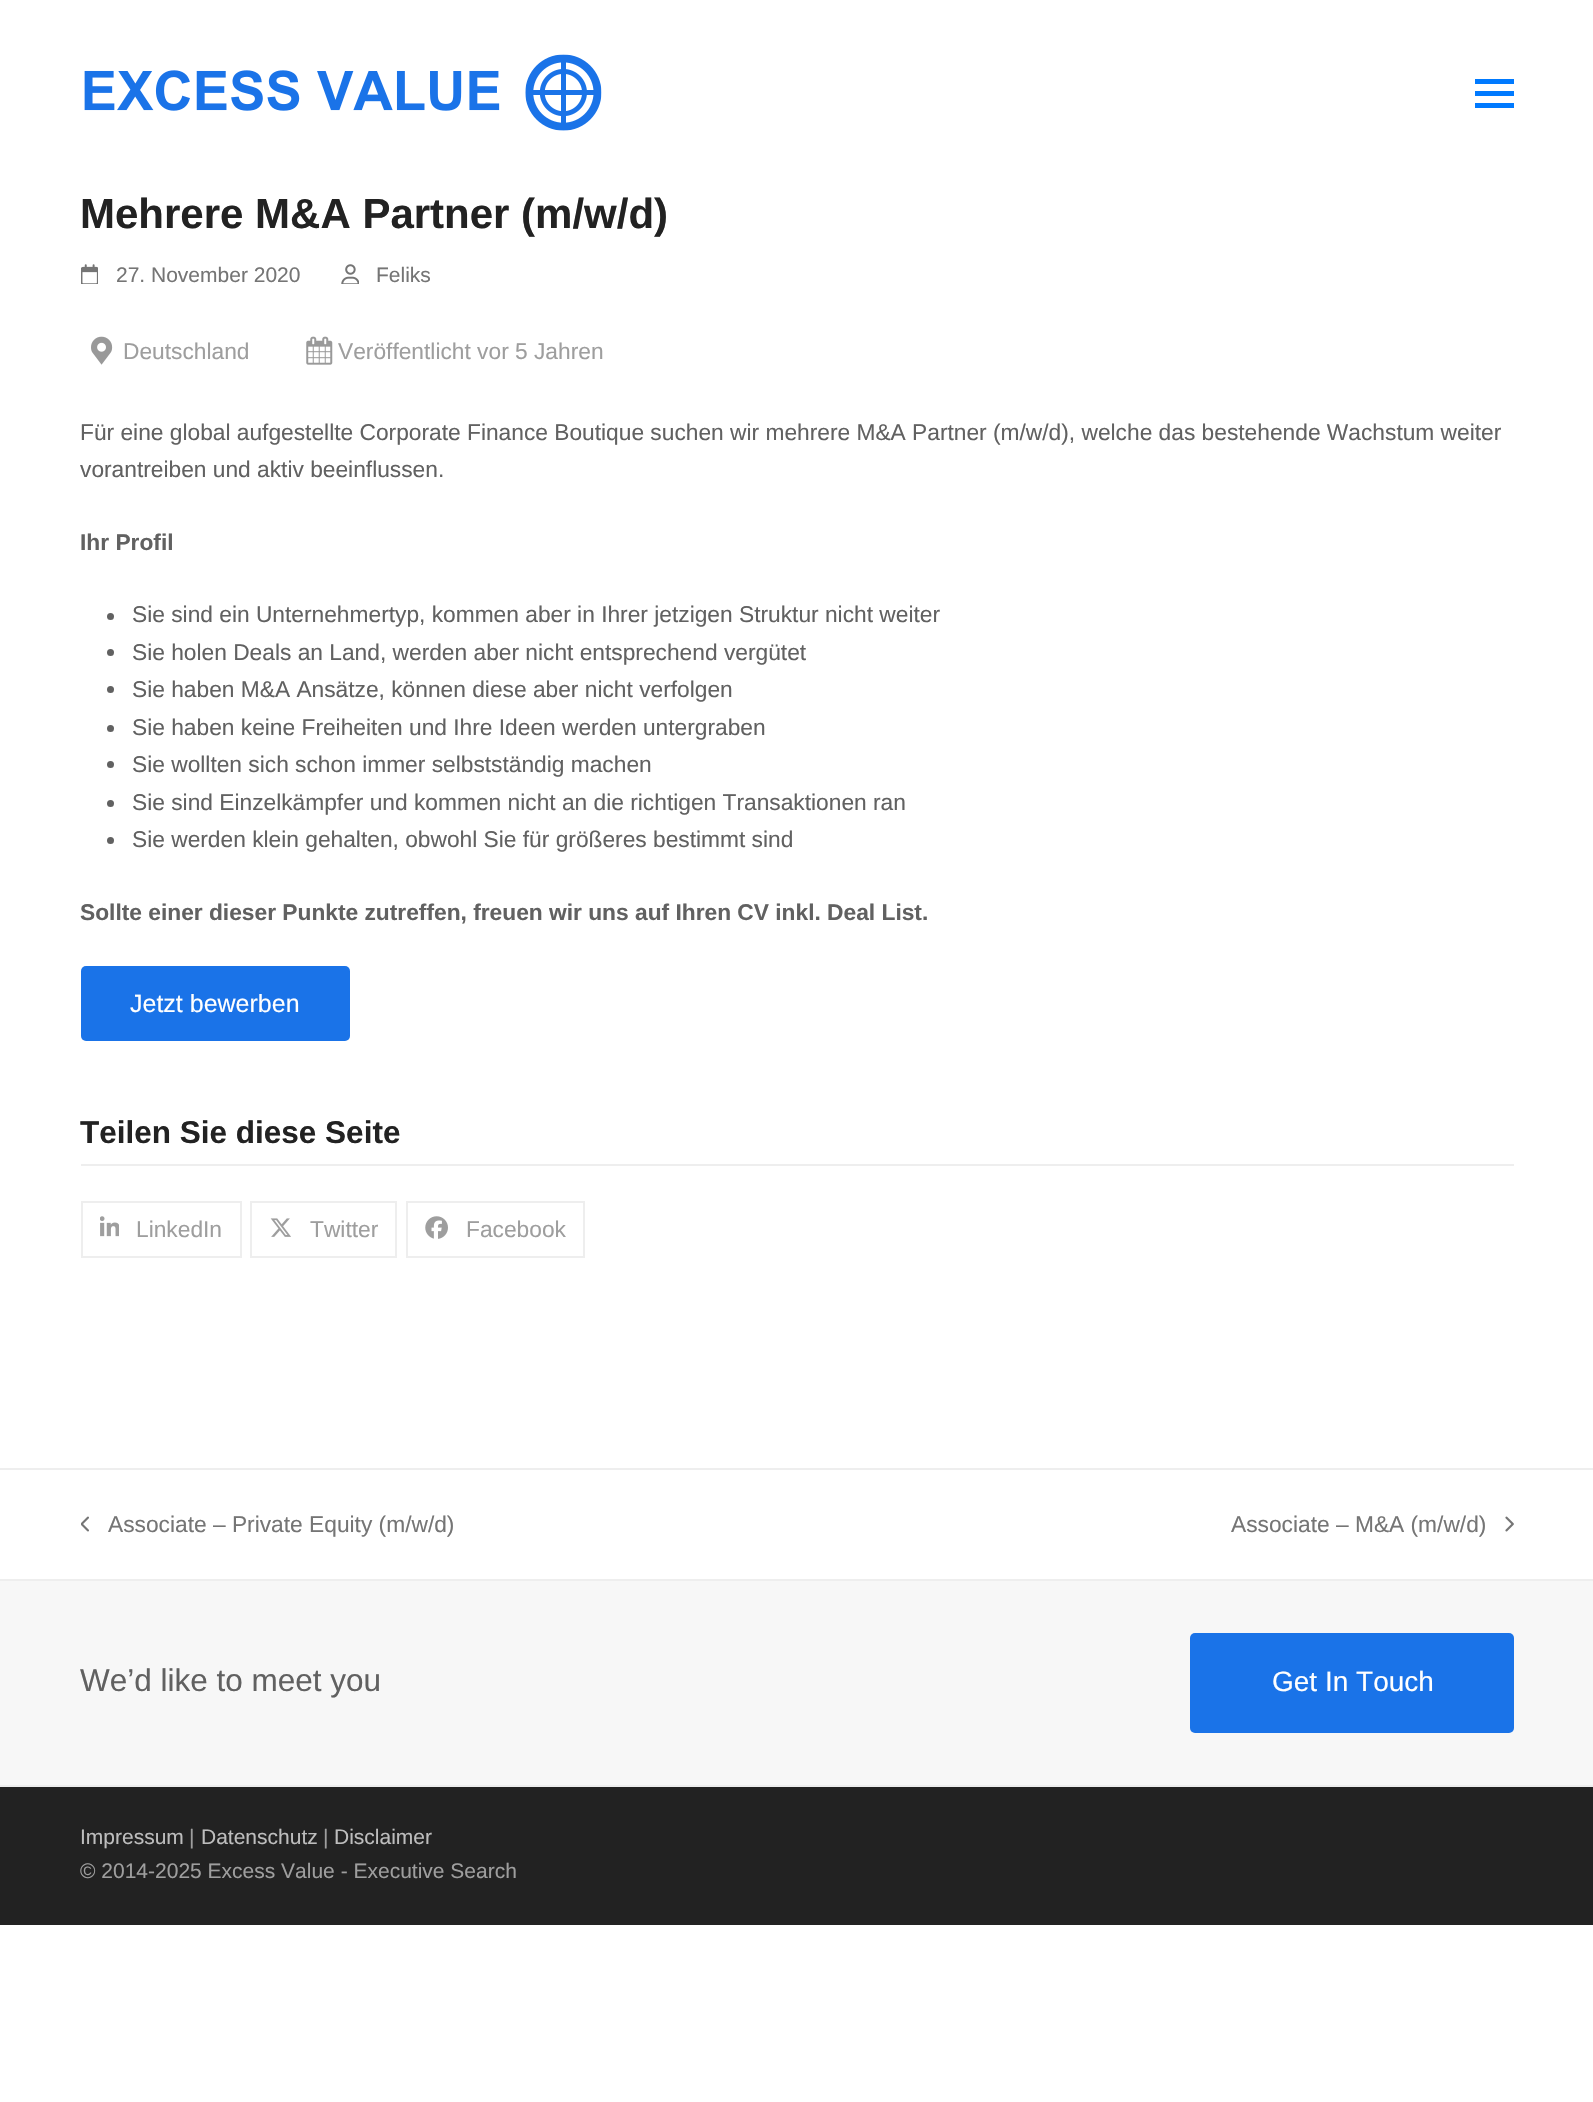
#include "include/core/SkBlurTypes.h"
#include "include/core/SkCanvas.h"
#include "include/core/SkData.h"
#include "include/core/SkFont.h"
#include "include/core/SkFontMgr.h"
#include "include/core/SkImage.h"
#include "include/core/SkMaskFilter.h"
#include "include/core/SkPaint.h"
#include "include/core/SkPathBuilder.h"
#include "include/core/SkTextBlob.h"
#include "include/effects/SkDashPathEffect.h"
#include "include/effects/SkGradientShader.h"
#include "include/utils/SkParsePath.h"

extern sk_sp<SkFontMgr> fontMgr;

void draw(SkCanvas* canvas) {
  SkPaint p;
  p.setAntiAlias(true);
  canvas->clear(SK_ColorWHITE);
  canvas->drawImageRect(SkImages::DeferredFromEncodedData(SkData::MakeFromFileName("images/1.png")), SkRect::MakeLTRB(84, 54, 602, 131), SkSamplingOptions());
  p.setColor(SkColorSetRGB(0, 122, 255));
  canvas->drawRect(SkRect::MakeLTRB(1475, 91, 1514, 96), p);
  canvas->drawRect(SkRect::MakeLTRB(1475, 79, 1514, 84), p);
  canvas->drawRect(SkRect::MakeLTRB(1475, 103, 1514, 108), p);
  canvas->drawImageRect(SkImages::DeferredFromEncodedData(SkData::MakeFromFileName("images/2.png")), SkRect::MakeLTRB(81, 264, 98, 284), SkSamplingOptions());
  canvas->drawImageRect(SkImages::DeferredFromEncodedData(SkData::MakeFromFileName("images/3.png")), SkRect::MakeLTRB(341, 264, 359, 284), SkSamplingOptions());
  canvas->drawImageRect(SkImages::DeferredFromEncodedData(SkData::MakeFromFileName("images/4.png")), SkRect::MakeLTRB(91, 336, 113, 365), SkSamplingOptions());
  canvas->drawImageRect(SkImages::DeferredFromEncodedData(SkData::MakeFromFileName("images/5.png")), SkRect::MakeLTRB(306, 336, 333, 365), SkSamplingOptions());
  p.setColor(SkColorSetRGB(97, 97, 97));
  canvas->drawCircle(110.5f, 616.5f, 3.5f, p);
  canvas->drawCircle(110.5f, 652.5f, 3.5f, p);
  canvas->drawCircle(110.5f, 689.5f, 3.5f, p);
  canvas->drawCircle(110.5f, 728.5f, 3.5f, p);
  canvas->drawCircle(110.5f, 764.5f, 3.5f, p);
  canvas->drawCircle(110.5f, 803.5f, 3.5f, p);
  canvas->drawCircle(110.5f, 840.5f, 3.5f, p);
  p.setColor(SkColorSetRGB(26, 115, 232));
  canvas->drawRoundRect(SkRect::MakeLTRB(81, 966, 350, 1041), 5, 5, p);
  p.setColor(SkColorSetRGB(238, 238, 238));
  canvas->drawRect(SkRect::MakeLTRB(81, 1164, 1514, 1166), p);
  p.setStyle(SkPaint::kStroke_Style);
  p.setStrokeWidth(2);
  canvas->drawRect(SkRect::MakeLTRB(82, 1202, 241, 1257), p);
  canvas->drawImageRect(SkImages::DeferredFromEncodedData(SkData::MakeFromFileName("images/6.png")), SkRect::MakeLTRB(100, 1216, 119, 1237), SkSamplingOptions());
  canvas->drawRect(SkRect::MakeLTRB(251, 1202, 396, 1257), p);
  canvas->drawImageRect(SkImages::DeferredFromEncodedData(SkData::MakeFromFileName("images/7.png")), SkRect::MakeLTRB(270, 1218, 291, 1237), SkSamplingOptions());
  canvas->drawRect(SkRect::MakeLTRB(407, 1202, 584, 1257), p);
  canvas->drawImageRect(SkImages::DeferredFromEncodedData(SkData::MakeFromFileName("images/8.png")), SkRect::MakeLTRB(425, 1216, 448, 1239), SkSamplingOptions());
  p.setStyle(SkPaint::kFill_Style);
  canvas->drawRect(SkRect::MakeLTRB(0, 1468, 1593, 1470), p);
  canvas->drawImageRect(SkImages::DeferredFromEncodedData(SkData::MakeFromFileName("images/9.png")), SkRect::MakeLTRB(81, 1516, 89, 1532), SkSamplingOptions());
  canvas->drawImageRect(SkImages::DeferredFromEncodedData(SkData::MakeFromFileName("images/10.png")), SkRect::MakeLTRB(1505, 1516, 1514, 1532), SkSamplingOptions());
  p.setColor(SkColorSetRGB(247, 247, 247));
  canvas->drawRect(SkRect::MakeLTRB(0, 1581, 1593, 1785), p);
  p.setColor(SkColorSetRGB(238, 238, 238));
  canvas->drawRect(SkRect::MakeLTRB(0, 1579, 1593, 1581), p);
  canvas->drawRect(SkRect::MakeLTRB(0, 1785, 1593, 1787), p);
  p.setColor(SkColorSetRGB(26, 115, 232));
  canvas->drawRoundRect(SkRect::MakeLTRB(1190, 1633, 1514, 1733), 5, 5, p);
  p.setColor(SkColorSetRGB(34, 34, 34));
  canvas->drawRect(SkRect::MakeLTRB(0, 1787, 1593, 1925), p);
  SkFont font1(fontMgr->matchFamilyStyle("Liberation Sans", SkFontStyle::Bold()), 42);
  font1.setSubpixel(true);
  canvas->drawString("Mehrere M&A Partner (m/w/d)", 80, 228, font1, p);
  SkFont font2(fontMgr->matchFamilyStyle("Liberation Sans", SkFontStyle::Normal()), 21);
  font2.setSubpixel(true);
  p.setColor(SkColorSetRGB(117, 117, 117));
  canvas->drawString("27. November 2020", 116, 282, font2, p);
  canvas->drawString("Feliks", 376, 282, font2, p);
  SkFont font3(fontMgr->matchFamilyStyle("Liberation Sans", SkFontStyle::Normal()), 22.75f);
  font3.setSubpixel(true);
  p.setColor(SkColorSetRGB(158, 158, 158));
  canvas->drawString("Deutschland", 123, 359, font3, p);
  canvas->drawString("Veröffentlicht vor 5 Jahren", 338, 359, font3, p);
  p.setColor(SkColorSetRGB(97, 97, 97));
  canvas->drawString("Für eine global aufgestellte Corporate Finance Boutique suchen wir mehrere M&A Partner (m/w/d), welche das bestehende Wachstum weiter", 80, 440, font3, p);
  canvas->drawString("vorantreiben und aktiv beeinflussen.", 80, 477, font3, p);
  SkFont font4(fontMgr->matchFamilyStyle("Liberation Sans", SkFontStyle::Bold()), 22.75f);
  font4.setSubpixel(true);
  canvas->drawString("Ihr Profil", 80, 550, font4, p);
  canvas->drawString("Sie sind ein Unternehmertyp, kommen aber in Ihrer jetzigen Struktur nicht weiter", 132, 622, font3, p);
  canvas->drawString("Sie holen Deals an Land, werden aber nicht entsprechend vergütet", 132, 660, font3, p);
  canvas->drawString("Sie haben M&A Ansätze, können diese aber nicht verfolgen", 132, 697, font3, p);
  canvas->drawString("Sie haben keine Freiheiten und Ihre Ideen werden untergraben", 132, 735, font3, p);
  canvas->drawString("Sie wollten sich schon immer selbstständig machen", 132, 772, font3, p);
  canvas->drawString("Sie sind Einzelkämpfer und kommen nicht an die richtigen Transaktionen ran", 132, 810, font3, p);
  canvas->drawString("Sie werden klein gehalten, obwohl Sie für größeres bestimmt sind", 132, 847, font3, p);
  canvas->drawString("Sollte einer dieser Punkte zutreffen, freuen wir uns auf Ihren CV inkl. Deal List.", 80, 920, font4, p);
  SkFont font5(fontMgr->matchFamilyStyle("Liberation Sans", SkFontStyle::Normal()), 25);
  font5.setSubpixel(true);
  p.setColor(SK_ColorWHITE);
  canvas->drawString("Jetzt bewerben", 130, 1012, font5, p);
  SkFont font6(fontMgr->matchFamilyStyle("Liberation Sans", SkFontStyle::Bold()), 31.5f);
  font6.setSubpixel(true);
  p.setColor(SkColorSetRGB(34, 34, 34));
  canvas->drawString("Teilen Sie diese Seite", 80, 1143, font6, p);
  p.setColor(SkColorSetRGB(158, 158, 158));
  canvas->drawString("LinkedIn", 136, 1237, font3, p);
  canvas->drawString("Twitter", 310, 1237, font3, p);
  canvas->drawString("Facebook", 466, 1237, font3, p);
  p.setColor(SkColorSetRGB(117, 117, 117));
  canvas->drawString("Associate – Private Equity (m/w/d)", 108, 1532, font3, p);
  canvas->drawString("Associate – M&A (m/w/d)", 1231, 1532, font3, p);
  SkFont font7(fontMgr->matchFamilyStyle("Liberation Sans", SkFontStyle::Normal()), 31.5f);
  font7.setSubpixel(true);
  p.setColor(SkColorSetRGB(97, 97, 97));
  canvas->drawString("We’d like to meet you", 80, 1691, font7, p);
  SkFont font8(fontMgr->matchFamilyStyle("Liberation Sans", SkFontStyle::Normal()), 28);
  font8.setSubpixel(true);
  p.setColor(SK_ColorWHITE);
  canvas->drawString("Get In Touch", 1272, 1691, font8, p);
  p.setColor(SkColorSetRGB(189, 189, 189));
  canvas->drawString("Impressum", 80, 1844, font2, p);
  p.setColor(SkColorSetRGB(158, 158, 158));
  canvas->drawString("|", 189, 1844, font2, p);
  p.setColor(SkColorSetRGB(189, 189, 189));
  canvas->drawString("Datenschutz", 201, 1844, font2, p);
  p.setColor(SkColorSetRGB(158, 158, 158));
  canvas->drawString("|", 323, 1844, font2, p);
  p.setColor(SkColorSetRGB(189, 189, 189));
  canvas->drawString("Disclaimer", 334, 1844, font2, p);
  p.setColor(SkColorSetRGB(158, 158, 158));
  canvas->drawString("© 2014-2025 Excess Value - Executive Search", 80, 1878, font2, p);
}
